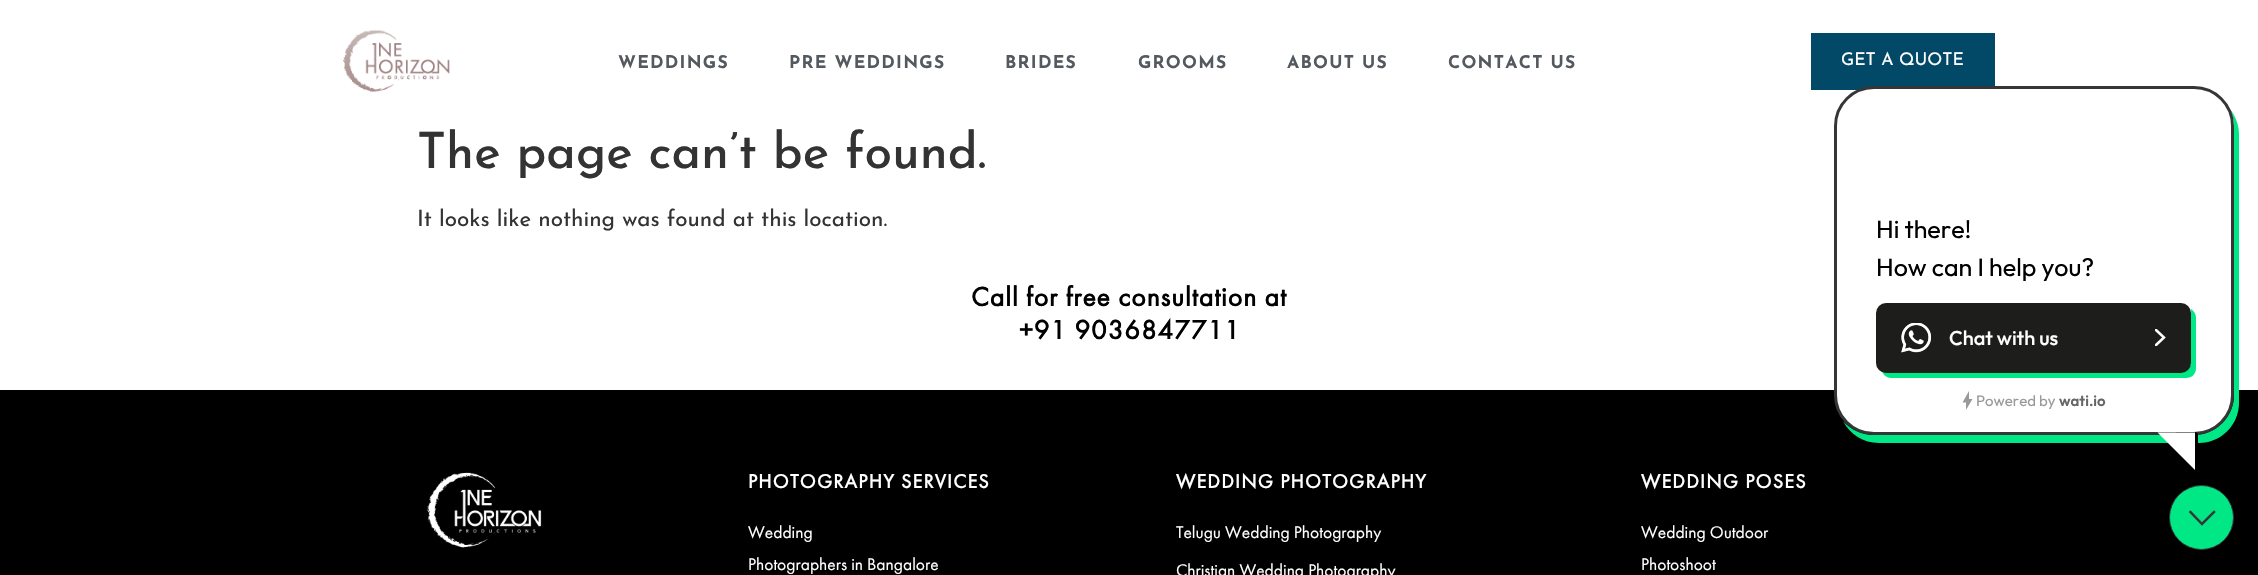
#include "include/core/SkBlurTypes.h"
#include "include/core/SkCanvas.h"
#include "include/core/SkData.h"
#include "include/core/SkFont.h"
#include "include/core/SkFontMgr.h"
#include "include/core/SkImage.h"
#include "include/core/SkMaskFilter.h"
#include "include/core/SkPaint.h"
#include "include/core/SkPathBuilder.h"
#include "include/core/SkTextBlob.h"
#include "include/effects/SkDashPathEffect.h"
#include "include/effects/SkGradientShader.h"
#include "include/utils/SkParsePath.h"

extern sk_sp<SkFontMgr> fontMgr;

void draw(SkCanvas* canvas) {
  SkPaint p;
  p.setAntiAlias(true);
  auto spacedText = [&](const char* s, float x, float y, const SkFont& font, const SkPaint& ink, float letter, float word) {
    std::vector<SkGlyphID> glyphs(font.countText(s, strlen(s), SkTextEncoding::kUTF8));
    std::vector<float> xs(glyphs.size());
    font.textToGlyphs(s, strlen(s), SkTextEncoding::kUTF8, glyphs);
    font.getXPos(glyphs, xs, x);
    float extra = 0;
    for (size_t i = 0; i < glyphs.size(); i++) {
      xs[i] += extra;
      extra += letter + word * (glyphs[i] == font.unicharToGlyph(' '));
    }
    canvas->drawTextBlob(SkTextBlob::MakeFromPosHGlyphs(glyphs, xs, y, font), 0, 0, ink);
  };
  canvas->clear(SK_ColorWHITE);
  canvas->drawImageRect(SkImages::DeferredFromEncodedData(SkData::MakeFromFileName("images/1.png")), SkRect::MakeLTRB(343, 30, 450, 92), SkSamplingOptions());
  p.setColor(SkColorSetRGB(1, 73, 102));
  canvas->drawRect(SkRect::MakeLTRB(1811, 33, 1995, 90), p);
  p.setColor(SK_ColorBLACK);
  canvas->drawRect(SkRect::MakeLTRB(0, 390, 2258, 575), p);
  canvas->drawImageRect(SkImages::DeferredFromEncodedData(SkData::MakeFromFileName("images/2.png")), SkRect::MakeLTRB(426, 472, 542, 548), SkSamplingOptions());
  p.setColor(SkColorSetRGB(0, 231, 133));
  canvas->drawPath(SkPathBuilder().moveTo(1843, 421).cubicTo(1850, 434, 1863, 443, 1879, 443).lineTo(2199, 443).cubicTo(2221, 443, 2239, 425, 2239, 403).lineTo(2239, 134).cubicTo(2239, 124, 2235, 115, 2229, 108).cubicTo(2232, 113, 2234, 120, 2234, 126).lineTo(2234, 395).cubicTo(2234, 417, 2216, 435, 2194, 435).lineTo(1874, 435).cubicTo(1861, 435, 1850, 429, 1843, 421).close().detach(), p);
  p.setColor(SK_ColorWHITE);
  canvas->drawRoundRect(SkRect::MakeLTRB(1835.5f, 87.5f, 2232.5f, 433.5f), 38.5f, 38.5f, p);
  p.setStyle(SkPaint::kStroke_Style);
  p.setStrokeWidth(3);
  p.setColor(SkColorSetRGB(54, 54, 54));
  canvas->drawRoundRect(SkRect::MakeLTRB(1835.5f, 87.5f, 2232.5f, 433.5f), 38.5f, 38.5f, p);
  p.setStyle(SkPaint::kFill_Style);
  p.setColor(SkColorSetRGB(0, 231, 133));
  canvas->drawPath(SkPathBuilder().moveTo(1882, 371).cubicTo(1883, 375, 1887, 378, 1891, 378).lineTo(2186, 378).cubicTo(2192, 378, 2196, 374, 2196, 368).lineTo(2196, 318).cubicTo(2196, 314, 2194, 311, 2191, 309).lineTo(2191, 312).lineTo(2191, 362).cubicTo(2191, 368, 2187, 372, 2181, 372).lineTo(1886, 372).cubicTo(1885, 372, 1883, 372, 1882, 371).close().detach(), p);
  p.setColor(SkColorSetRGB(29, 29, 27));
  canvas->drawRoundRect(SkRect::MakeLTRB(1876, 303, 2191, 373), 10, 10, p);
  canvas->drawImageRect(SkImages::DeferredFromEncodedData(SkData::MakeFromFileName("images/3.png")), SkRect::MakeLTRB(1901, 323, 1931, 353), SkSamplingOptions());
  canvas->save();
  canvas->clipRect(SkRect::MakeLTRB(2155, 329, 2166, 346));
  p.setStyle(SkPaint::kStroke_Style);
  p.setStrokeWidth(2.5f);
  p.setStrokeCap(SkPaint::kRound_Cap);
  p.setColor(SK_ColorWHITE);
  canvas->drawPath(SkPathBuilder().moveTo(2156, 330).lineTo(2164, 337.5f).lineTo(2156, 345).detach(), p);
  canvas->restore();
  p.setStyle(SkPaint::kFill_Style);
  p.setColor(SkColorSetRGB(153, 153, 153));
  canvas->drawPath(SkPathBuilder().moveTo(1966, 410).lineTo(1966, 402.5f).lineTo(1962.5f, 402.5f).lineTo(1969, 391).lineTo(1969, 399).lineTo(1972.5f, 399).close().detach(), p);
  p.setColor(SK_ColorBLACK);
  canvas->drawPath(SkPathBuilder().moveTo(2198, 474).lineTo(2197, 474).lineTo(2176, 454).lineTo(2176, 432).lineTo(2196, 432).lineTo(2198, 434).close().detach(), p);
  p.setColor(SK_ColorWHITE);
  canvas->drawPath(SkPathBuilder().moveTo(2195, 432.5f).lineTo(2195, 470).lineTo(2157.5f, 432.5f).close().detach(), p);
  p.setColor(SkColorSetRGB(0, 231, 133));
  canvas->drawCircle(2201.5f, 517.5f, 32, p);
  p.setStyle(SkPaint::kStroke_Style);
  p.setStrokeWidth(1);
  p.setStrokeCap(SkPaint::kButt_Cap);
  p.setColor(SkColorSetRGB(54, 54, 54));
  canvas->drawCircle(2201.5f, 517.5f, 32, p);
  p.setStrokeWidth(2.5f);
  p.setStrokeCap(SkPaint::kSquare_Cap);
  canvas->drawPath(SkPathBuilder().moveTo(2190.5f, 512).lineTo(2202, 524).lineTo(2214, 512).detach(), p);
  SkFont font1(fontMgr->matchFamilyStyle("Josefin Sans", SkFontStyle::Bold()), 17.5f);
  font1.setSubpixel(true);
  p.setStyle(SkPaint::kFill_Style);
  p.setColor(SkColorSetRGB(84, 89, 95));
  spacedText("WEDDINGS", 618, 68, font1, p, 1.25f, 0);
  spacedText("PRE WEDDINGS", 789, 68, font1, p, 1.25f, 0);
  spacedText("BRIDES", 1005, 68, font1, p, 1.25f, 0);
  spacedText("GROOMS", 1138, 68, font1, p, 1.25f, 0);
  spacedText("ABOUT US", 1287, 68, font1, p, 1.25f, 0);
  spacedText("CONTACT US", 1448, 68, font1, p, 1.25f, 0);
  SkFont font2(fontMgr->matchFamilyStyle("Josefin Sans", SkFontStyle::Normal()), 17.5f);
  font2.setSubpixel(true);
  p.setColor(SK_ColorWHITE);
  canvas->drawString("GET A QUOTE", 1841, 65, font2, p);
  SkFont font3(fontMgr->matchFamilyStyle("Josefin Sans", SkFontStyle(500, SkFontStyle::kNormal_Width, SkFontStyle::kUpright_Slant)), 50);
  font3.setSubpixel(true);
  p.setColor(SkColorSetRGB(51, 51, 51));
  canvas->drawString("The page can’t be found.", 417, 168, font3, p);
  SkFont font4(fontMgr->matchFamilyStyle("Josefin Sans", SkFontStyle::Normal()), 22.5f);
  font4.setSubpixel(true);
  canvas->drawString("It looks like nothing was found at this location.", 417, 226, font4, p);
  SkFont font5(fontMgr->matchFamilyStyle("Futura PT", SkFontStyle::Bold()), 27.5f);
  font5.setSubpixel(true);
  p.setColor(SK_ColorBLACK);
  spacedText("Call for free consultation at", 971, 306, font5, p, 1, 0);
  spacedText("+91 9036847711", 1019, 339, font5, p, 1, 0);
  SkFont font6(fontMgr->matchFamilyStyle("Futura PT", SkFontStyle::Bold()), 20);
  font6.setSubpixel(true);
  p.setColor(SK_ColorWHITE);
  spacedText("PHOTOGRAPHY SERVICES", 748, 488, font6, p, 1.25f, 0);
  SkFont font7(fontMgr->matchFamilyStyle("Futura PT", SkFontStyle::Normal()), 17.5f);
  font7.setSubpixel(true);
  canvas->drawString("Wedding", 748, 538, font7, p);
  canvas->drawString("Photographers in Bangalore", 748, 570, font7, p);
  spacedText("WEDDING PHOTOGRAPHY", 1176, 488, font6, p, 1.25f, 0);
  canvas->drawString("Telugu Wedding Photography", 1176, 538, font7, p);
  canvas->drawString("Christian Wedding Photography", 1176, 576, font7, p);
  spacedText("WEDDING POSES", 1641, 488, font6, p, 1.25f, 0);
  canvas->drawString("Wedding Outdoor", 1641, 538, font7, p);
  canvas->drawString("Photoshoot", 1641, 570, font7, p);
  SkFont font8(fontMgr->matchFamilyStyle("Outfit", SkFontStyle::Normal()), 25);
  font8.setSubpixel(true);
  p.setColor(SK_ColorBLACK);
  canvas->drawString("Hi there!", 1876, 238, font8, p);
  canvas->drawString("How can I help you?", 1876, 276, font8, p);
  SkFont font9(fontMgr->matchFamilyStyle("Outfit", SkFontStyle(500, SkFontStyle::kNormal_Width, SkFontStyle::kUpright_Slant)), 20);
  font9.setSubpixel(true);
  p.setColor(SK_ColorWHITE);
  canvas->drawString("Chat with us", 1949, 345, font9, p);
  SkFont font10(fontMgr->matchFamilyStyle("Outfit", SkFontStyle::Normal()), 15);
  font10.setSubpixel(true);
  p.setColor(SkColorSetRGB(153, 153, 153));
  canvas->drawString("Powered by", 1976, 406, font10, p);
  SkFont font11(fontMgr->matchFamilyStyle("Outfit", SkFontStyle(600, SkFontStyle::kNormal_Width, SkFontStyle::kUpright_Slant)), 15);
  font11.setSubpixel(true);
  p.setColor(SkColorSetRGB(102, 102, 102));
  canvas->drawString("wati.io", 2059, 406, font11, p);
}
